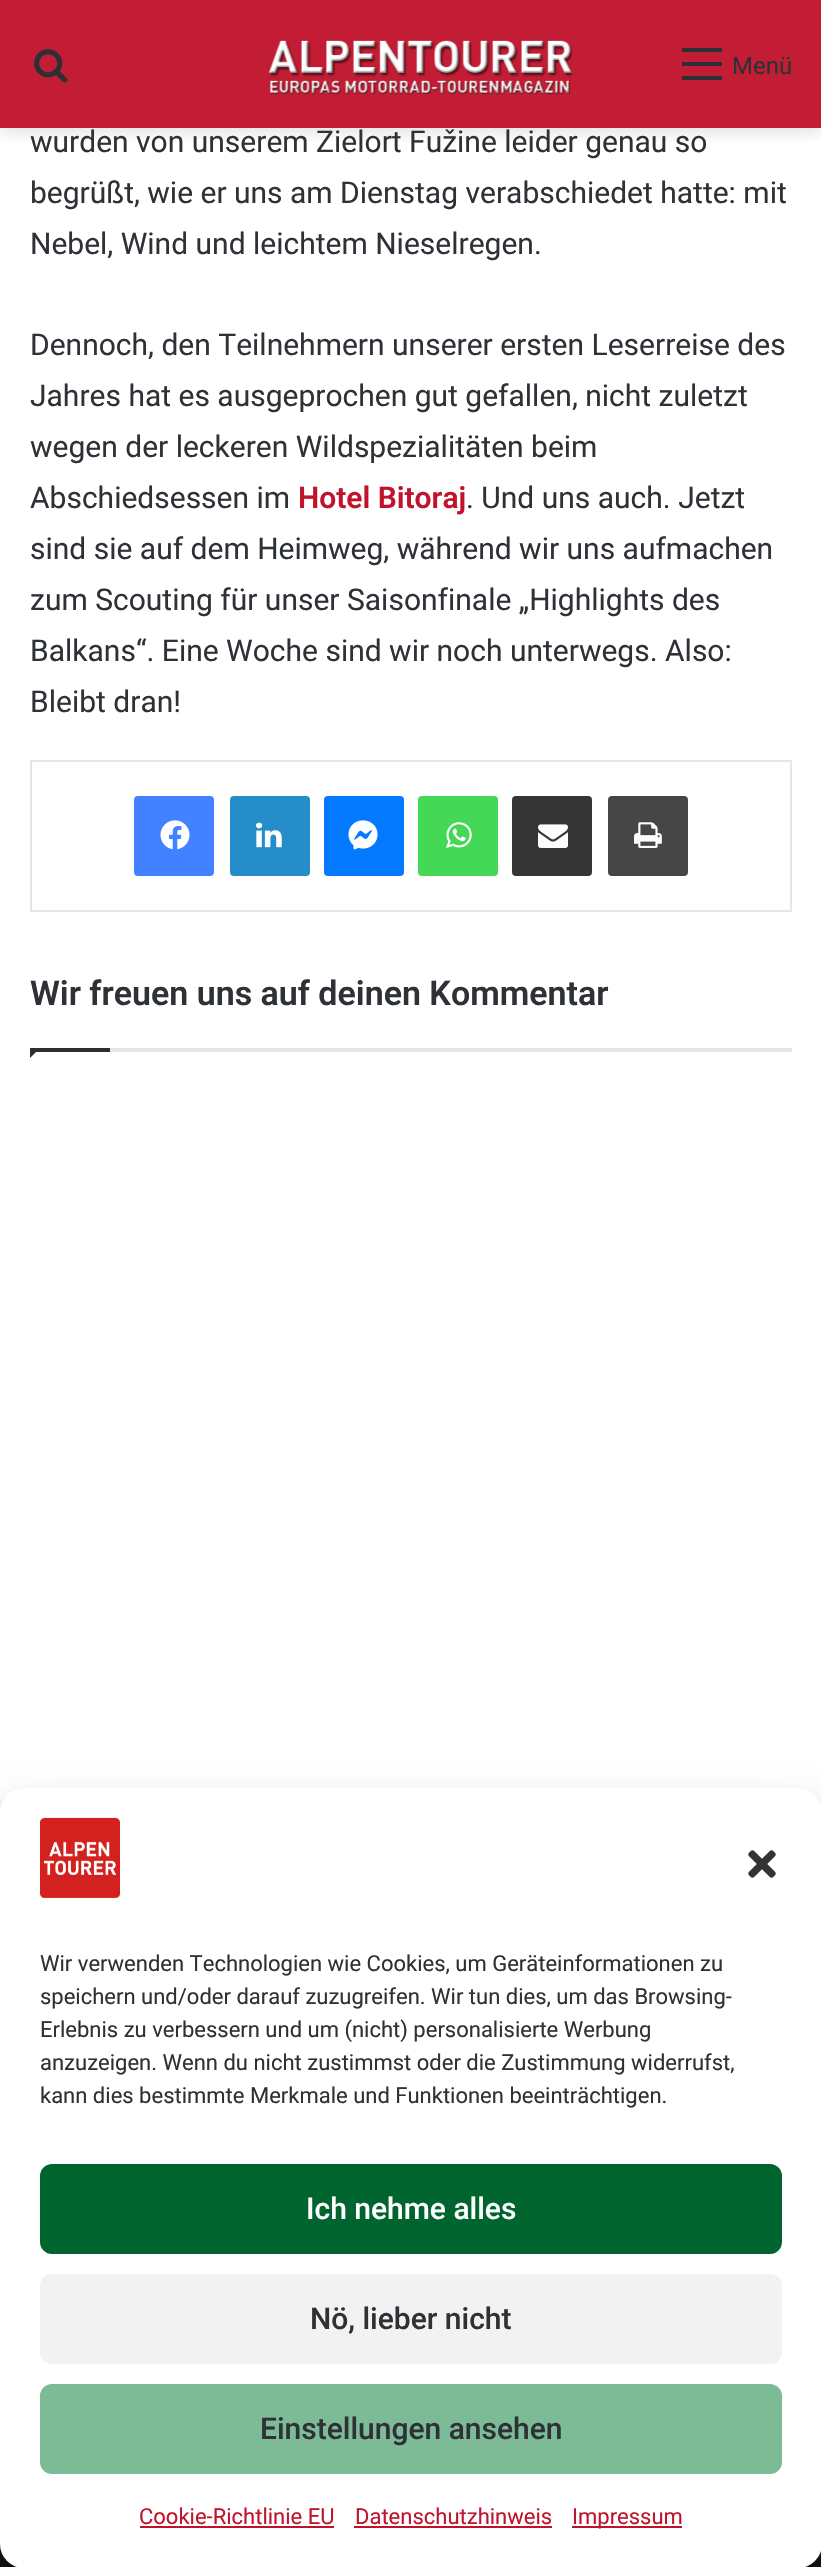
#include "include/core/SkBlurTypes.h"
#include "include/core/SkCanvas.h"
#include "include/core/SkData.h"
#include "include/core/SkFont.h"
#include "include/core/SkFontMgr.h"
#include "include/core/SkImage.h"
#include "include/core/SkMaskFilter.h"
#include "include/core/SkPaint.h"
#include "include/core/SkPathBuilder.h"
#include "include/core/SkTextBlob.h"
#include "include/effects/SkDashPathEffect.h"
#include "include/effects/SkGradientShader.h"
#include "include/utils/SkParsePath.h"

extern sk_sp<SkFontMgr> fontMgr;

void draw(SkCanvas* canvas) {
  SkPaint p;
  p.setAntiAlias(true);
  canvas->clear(SK_ColorWHITE);
  p.setColor(SkColorSetRGB(195, 29, 53));
  canvas->drawRect(SkRect::MakeLTRB(0, 0, 821, 128), p);
  canvas->save();
  canvas->clipRect(SkRect::MakeLTRB(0, 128, 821, 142));
  p.setColor(SkColorSetARGB(51, 99, 99, 99));
  p.setMaskFilter(SkMaskFilter::MakeBlur(kNormal_SkBlurStyle, 8));
  canvas->drawRect(SkRect::MakeLTRB(0, 4, 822, 132), p);
  p.setMaskFilter(nullptr);
  canvas->restore();
  canvas->drawImageRect(SkImages::DeferredFromEncodedData(SkData::MakeFromFileName("images/1.png")), SkRect::MakeLTRB(34, 49, 68, 83), SkSamplingOptions());
  canvas->drawImageRect(SkImages::DeferredFromEncodedData(SkData::MakeFromFileName("images/2.png")), SkRect::MakeLTRB(268, 40, 572, 95), SkSamplingOptions());
  p.setColor(SkColorSetRGB(44, 47, 52));
  canvas->drawRect(SkRect::MakeLTRB(682, 62, 722, 66), p);
  canvas->drawRect(SkRect::MakeLTRB(682, 48, 722, 52), p);
  canvas->drawRect(SkRect::MakeLTRB(682, 76, 722, 80), p);
  p.setStyle(SkPaint::kStroke_Style);
  p.setStrokeWidth(2);
  p.setColor(SkColorSetRGB(230, 230, 230));
  canvas->drawRect(SkRect::MakeLTRB(31, 761, 791, 911), p);
  p.setStyle(SkPaint::kFill_Style);
  p.setColor(SkColorSetRGB(66, 129, 255));
  canvas->drawRoundRect(SkRect::MakeLTRB(134, 796, 214, 876), 4, 4, p);
  canvas->drawImageRect(SkImages::DeferredFromEncodedData(SkData::MakeFromFileName("images/3.png")), SkRect::MakeLTRB(160, 820, 190, 850), SkSamplingOptions());
  p.setColor(SkColorSetRGB(37, 141, 201));
  canvas->drawRoundRect(SkRect::MakeLTRB(230, 796, 310, 876), 4, 4, p);
  canvas->drawImageRect(SkImages::DeferredFromEncodedData(SkData::MakeFromFileName("images/4.png")), SkRect::MakeLTRB(256, 822, 282, 848), SkSamplingOptions());
  p.setColor(SkColorSetRGB(3, 121, 255));
  canvas->drawRoundRect(SkRect::MakeLTRB(324, 796, 404, 876), 4, 4, p);
  canvas->drawImageRect(SkImages::DeferredFromEncodedData(SkData::MakeFromFileName("images/5.png")), SkRect::MakeLTRB(348, 820, 378, 850), SkSamplingOptions());
  p.setColor(SkColorSetRGB(69, 216, 86));
  canvas->drawRoundRect(SkRect::MakeLTRB(418, 796, 498, 876), 4, 4, p);
  canvas->drawImageRect(SkImages::DeferredFromEncodedData(SkData::MakeFromFileName("images/6.png")), SkRect::MakeLTRB(446, 822, 472, 848), SkSamplingOptions());
  p.setColor(SkColorSetRGB(53, 53, 53));
  canvas->drawRoundRect(SkRect::MakeLTRB(512, 796, 592, 876), 4, 4, p);
  canvas->drawImageRect(SkImages::DeferredFromEncodedData(SkData::MakeFromFileName("images/7.png")), SkRect::MakeLTRB(538, 824, 568, 848), SkSamplingOptions());
  p.setColor(SkColorSetRGB(70, 70, 70));
  canvas->drawRoundRect(SkRect::MakeLTRB(608, 796, 688, 876), 4, 4, p);
  canvas->drawImageRect(SkImages::DeferredFromEncodedData(SkData::MakeFromFileName("images/8.png")), SkRect::MakeLTRB(634, 822, 662, 848), SkSamplingOptions());
  p.setColor(SkColorSetRGB(230, 230, 230));
  canvas->drawRect(SkRect::MakeLTRB(110, 1048, 792, 1052), p);
  p.setColor(SkColorSetRGB(44, 47, 52));
  canvas->drawPath(SkPathBuilder().moveTo(30, 1048).lineTo(40, 1048).lineTo(30, 1058).close().detach(), p);
  canvas->drawRect(SkRect::MakeLTRB(30, 1048, 110, 1052), p);
  p.setColor(SkColorSetRGB(22, 22, 25));
  canvas->drawRect(SkRect::MakeLTRB(0, 2544, 821, 2567), p);
  p.setColor(SkColorSetARGB(59, 0, 0, 0));
  p.setMaskFilter(SkMaskFilter::MakeBlur(kNormal_SkBlurStyle, 6));
  canvas->drawRoundRect(SkRect::MakeLTRB(0, 1800, 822, 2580), 24, 24, p);
  p.setMaskFilter(nullptr);
  p.setColor(SkColorSetARGB(48, 0, 0, 0));
  p.setMaskFilter(SkMaskFilter::MakeBlur(kNormal_SkBlurStyle, 20));
  canvas->drawRoundRect(SkRect::MakeLTRB(0, 1808, 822, 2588), 24, 24, p);
  p.setMaskFilter(nullptr);
  p.setColor(SK_ColorWHITE);
  canvas->drawRoundRect(SkRect::MakeLTRB(0, 1788, 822, 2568), 24, 24, p);
  canvas->drawImageRect(SkImages::DeferredFromEncodedData(SkData::MakeFromFileName("images/9.png")), SkRect::MakeLTRB(40, 1817, 120, 1898), SkSamplingOptions());
  canvas->drawImageRect(SkImages::DeferredFromEncodedData(SkData::MakeFromFileName("images/10.png")), SkRect::MakeLTRB(748, 1850, 776, 1878), SkSamplingOptions());
  p.setColor(SkColorSetRGB(0, 100, 47));
  canvas->drawRoundRect(SkRect::MakeLTRB(41, 2165, 781, 2253), 11, 11, p);
  p.setStyle(SkPaint::kStroke_Style);
  canvas->drawRoundRect(SkRect::MakeLTRB(41, 2165, 781, 2253), 11, 11, p);
  p.setStyle(SkPaint::kFill_Style);
  p.setColor(SkColorSetRGB(242, 242, 242));
  canvas->drawRoundRect(SkRect::MakeLTRB(41, 2275, 781, 2363), 11, 11, p);
  p.setStyle(SkPaint::kStroke_Style);
  canvas->drawRoundRect(SkRect::MakeLTRB(41, 2275, 781, 2363), 11, 11, p);
  p.setStyle(SkPaint::kFill_Style);
  p.setColor(SkColorSetRGB(124, 187, 150));
  canvas->drawRoundRect(SkRect::MakeLTRB(41, 2385, 781, 2473), 11, 11, p);
  p.setStyle(SkPaint::kStroke_Style);
  canvas->drawRoundRect(SkRect::MakeLTRB(41, 2385, 781, 2473), 11, 11, p);
  p.setStyle(SkPaint::kFill_Style);
  p.setColor(SkColorSetRGB(192, 17, 42));
  canvas->drawRect(SkRect::MakeLTRB(140, 2526, 334, 2528), p);
  canvas->drawRect(SkRect::MakeLTRB(354, 2526, 552, 2528), p);
  canvas->drawRect(SkRect::MakeLTRB(572, 2526, 682, 2528), p);
  SkFont font1(fontMgr->matchFamilyStyle("Roboto", SkFontStyle::Normal()), 24);
  font1.setSubpixel(true);
  p.setColor(SkColorSetRGB(46, 49, 54));
  canvas->drawString("Menü", 732, 74, font1, p);
  SkFont font2(fontMgr->matchFamilyStyle("Roboto", SkFontStyle::Normal()), 30);
  font2.setSubpixel(true);
  canvas->drawString("wurden von unserem Zielort Fužine leider genau so", 30, 152, font2, p);
  canvas->drawString("begrüßt, wie er uns am Dienstag verabschiedet hatte: mit", 30, 203, font2, p);
  canvas->drawString("Nebel, Wind und leichtem Nieselregen.", 30, 254, font2, p);
  canvas->drawString("Dennoch, den Teilnehmern unserer ersten Leserreise des", 30, 355, font2, p);
  canvas->drawString("Jahres hat es ausgeprochen gut gefallen, nicht zuletzt", 30, 406, font2, p);
  canvas->drawString("wegen der leckeren Wildspezialitäten beim", 30, 457, font2, p);
  canvas->drawString("Abschiedsessen im", 30, 508, font2, p);
  SkFont font3(fontMgr->matchFamilyStyle("Roboto", SkFontStyle(600, SkFontStyle::kNormal_Width, SkFontStyle::kUpright_Slant)), 30);
  font3.setSubpixel(true);
  p.setColor(SkColorSetRGB(193, 19, 44));
  canvas->drawString("Hotel Bitoraj", 298, 508, font3, p);
  p.setColor(SkColorSetRGB(46, 49, 54));
  canvas->drawString(". Und uns auch. Jetzt", 466, 508, font2, p);
  canvas->drawString("sind sie auf dem Heimweg, während wir uns aufmachen", 30, 559, font2, p);
  canvas->drawString("zum Scouting für unser Saisonfinale „Highlights des", 30, 610, font2, p);
  canvas->drawString("Balkans“. Eine Woche sind wir noch unterwegs. Also:", 30, 661, font2, p);
  canvas->drawString("Bleibt dran!", 30, 712, font2, p);
  SkFont font4(fontMgr->matchFamilyStyle("Roboto", SkFontStyle(600, SkFontStyle::kNormal_Width, SkFontStyle::kUpright_Slant)), 34);
  font4.setSubpixel(true);
  canvas->drawString("Wir freuen uns auf deinen Kommentar", 30, 1005, font4, p);
  SkFont font5(fontMgr->matchFamilyStyle("Roboto", SkFontStyle::Normal()), 22);
  font5.setSubpixel(true);
  canvas->drawString("Wir verwenden Technologien wie Cookies, um Geräteinformationen zu", 40, 1971, font5, p);
  canvas->drawString("speichern und/oder darauf zuzugreifen. Wir tun dies, um das Browsing-", 40, 2004, font5, p);
  canvas->drawString("Erlebnis zu verbessern und um (nicht) personalisierte Werbung", 40, 2037, font5, p);
  canvas->drawString("anzuzeigen. Wenn du nicht zustimmst oder die Zustimmung widerrufst,", 40, 2070, font5, p);
  canvas->drawString("kann dies bestimmte Merkmale und Funktionen beeinträchtigen.", 40, 2103, font5, p);
  SkFont font6(fontMgr->matchFamilyStyle("Roboto", SkFontStyle(500, SkFontStyle::kNormal_Width, SkFontStyle::kUpright_Slant)), 30);
  font6.setSubpixel(true);
  p.setColor(SK_ColorWHITE);
  canvas->drawString("Ich nehme alles", 306, 2219, font6, p);
  p.setColor(SkColorSetRGB(46, 49, 54));
  canvas->drawString("Nö, lieber nicht", 310, 2329, font6, p);
  canvas->drawString("Einstellungen ansehen", 260, 2439, font6, p);
  p.setColor(SkColorSetRGB(193, 19, 44));
  canvas->drawString("Cookie-Richtlinie EU", 139, 2524, font5, p);
  canvas->drawString("Datenschutzhinweis", 355, 2524, font5, p);
  canvas->drawString("Impressum", 572, 2524, font5, p);
}
